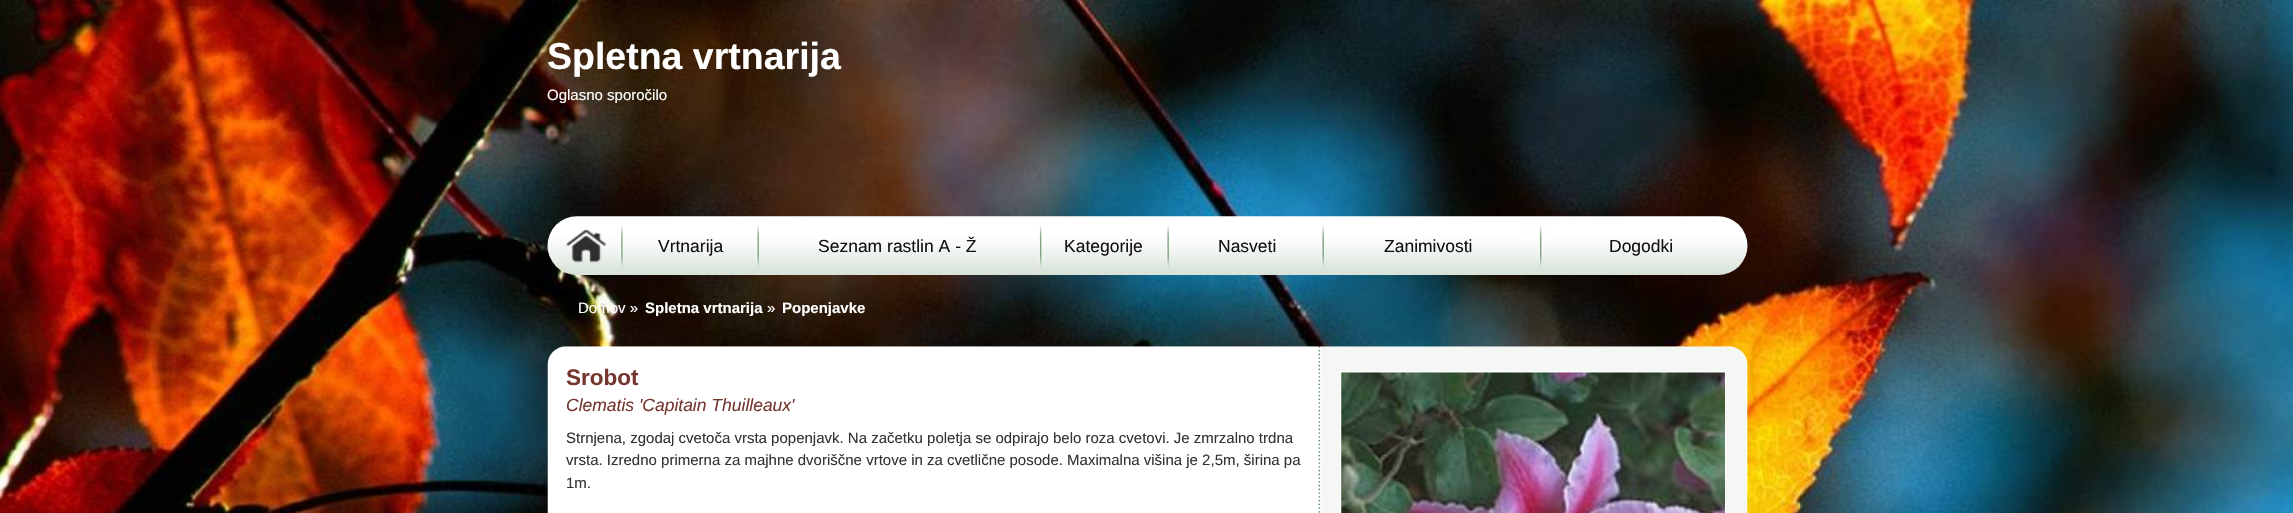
#include "include/core/SkBlurTypes.h"
#include "include/core/SkCanvas.h"
#include "include/core/SkData.h"
#include "include/core/SkFont.h"
#include "include/core/SkFontMgr.h"
#include "include/core/SkImage.h"
#include "include/core/SkMaskFilter.h"
#include "include/core/SkPaint.h"
#include "include/core/SkPathBuilder.h"
#include "include/core/SkTextBlob.h"
#include "include/effects/SkDashPathEffect.h"
#include "include/effects/SkGradientShader.h"
#include "include/utils/SkParsePath.h"

extern sk_sp<SkFontMgr> fontMgr;

void draw(SkCanvas* canvas) {
  SkPaint p;
  p.setAntiAlias(true);
  canvas->clear(SK_ColorWHITE);
  canvas->drawImageRect(SkImages::DeferredFromEncodedData(SkData::MakeFromFileName("images/1.png")), SkRect::MakeLTRB(0, 0, 2293, 513), SkSamplingOptions());
  canvas->drawImageRect(SkImages::DeferredFromEncodedData(SkData::MakeFromFileName("images/2.png")), SkRect::MakeLTRB(547, 216, 1748, 275), SkSamplingOptions());
  canvas->drawImageRect(SkImages::DeferredFromEncodedData(SkData::MakeFromFileName("images/3.png")), SkRect::MakeLTRB(547, 346, 1748, 513), SkSamplingOptions());
  p.setStyle(SkPaint::kStroke_Style);
  p.setStrokeWidth(1);
  p.setColor(SK_ColorWHITE);
  canvas->drawRect(SkRect::MakeLTRB(1340.5f, 371.5f, 1725.5f, 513.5f), p);
  canvas->drawImageRect(SkImages::DeferredFromEncodedData(SkData::MakeFromFileName("images/4.png")), SkRect::MakeLTRB(1341, 372, 1725, 513), SkSamplingOptions());
  SkFont font1(fontMgr->matchFamilyStyle("Liberation Sans", SkFontStyle::Bold()), 37.5f);
  font1.setSubpixel(true);
  p.setStyle(SkPaint::kFill_Style);
  canvas->drawString("Spletna vrtnarija", 547, 69, font1, p);
  SkFont font2(fontMgr->matchFamilyStyle("Liberation Sans", SkFontStyle::Normal()), 15);
  font2.setSubpixel(true);
  canvas->drawString("Oglasno sporočilo", 547, 100, font2, p);
  SkFont font3(fontMgr->matchFamilyStyle("Liberation Sans", SkFontStyle::Normal()), 17.5f);
  font3.setSubpixel(true);
  p.setColor(SkColorSetRGB(17, 17, 17));
  canvas->drawString("Vrtnarija", 658, 252, font3, p);
  canvas->drawString("Seznam rastlin A - Ž", 818, 252, font3, p);
  canvas->drawString("Kategorije", 1064, 252, font3, p);
  canvas->drawString("Nasveti", 1218, 252, font3, p);
  canvas->drawString("Zanimivosti", 1384, 252, font3, p);
  canvas->drawString("Dogodki", 1609, 252, font3, p);
  p.setColor(SK_ColorWHITE);
  canvas->drawString("Domov »", 578, 313, font2, p);
  SkFont font4(fontMgr->matchFamilyStyle("Liberation Sans", SkFontStyle::Bold()), 15);
  font4.setSubpixel(true);
  canvas->drawString("Spletna vrtnarija", 645, 313, font4, p);
  canvas->drawString("»", 767, 313, font2, p);
  canvas->drawString("Popenjavke", 782, 313, font4, p);
  SkFont font5(fontMgr->matchFamilyStyle("Liberation Sans", SkFontStyle::Bold()), 22.5f);
  font5.setSubpixel(true);
  p.setColor(SkColorSetRGB(118, 54, 48));
  canvas->drawString("Srobot", 566, 385, font5, p);
  SkFont font6(fontMgr->matchFamilyStyle("Liberation Sans", SkFontStyle::Italic()), 17.5f);
  font6.setSubpixel(true);
  canvas->drawString("Clematis 'Capitain Thuilleaux'", 566, 411, font6, p);
  p.setColor(SkColorSetRGB(51, 51, 51));
  canvas->drawString("Strnjena, zgodaj cvetoča vrsta popenjavk. Na začetku poletja se odpirajo belo roza cvetovi. Je zmrzalno trdna", 566, 443, font2, p);
  canvas->drawString("vrsta. Izredno primerna za majhne dvoriščne vrtove in za cvetlične posode. Maximalna višina je 2,5m, širina pa", 566, 465, font2, p);
  canvas->drawString("1m.", 566, 488, font2, p);
}
